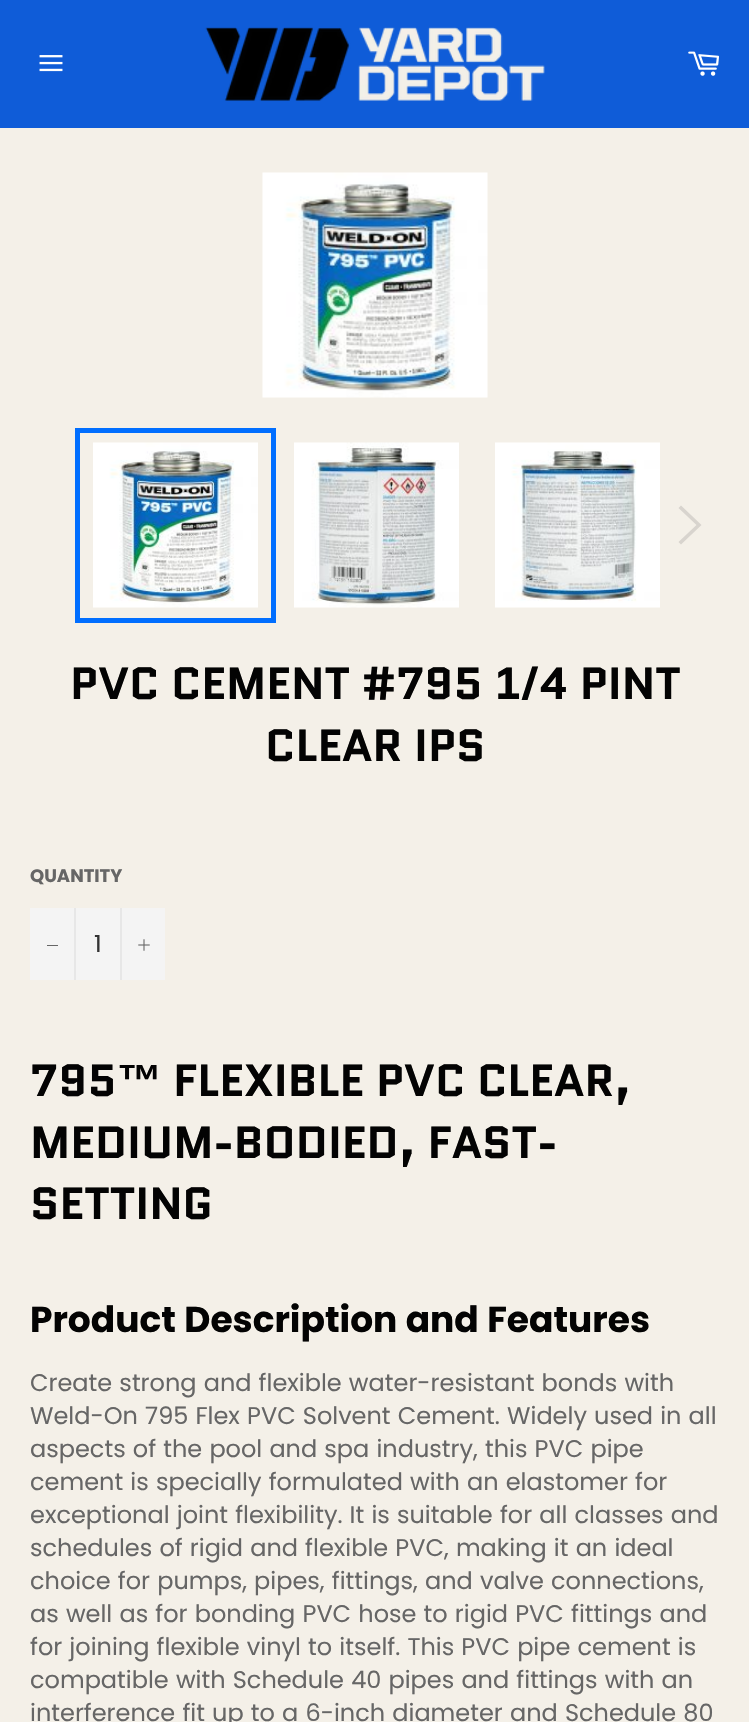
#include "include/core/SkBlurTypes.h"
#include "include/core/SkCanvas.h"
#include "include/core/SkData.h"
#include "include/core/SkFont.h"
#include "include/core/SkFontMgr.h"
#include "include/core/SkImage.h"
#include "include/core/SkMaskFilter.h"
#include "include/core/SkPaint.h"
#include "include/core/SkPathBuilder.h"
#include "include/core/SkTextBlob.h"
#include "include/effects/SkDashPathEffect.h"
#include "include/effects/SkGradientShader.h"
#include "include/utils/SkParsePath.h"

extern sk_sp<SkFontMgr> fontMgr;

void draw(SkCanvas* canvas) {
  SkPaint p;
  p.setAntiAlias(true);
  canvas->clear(SkColorSetRGB(244, 240, 232));
  p.setColor(SkColorSetRGB(15, 92, 216));
  canvas->drawRect(SkRect::MakeLTRB(0, 0, 749, 128), p);
  canvas->drawImageRect(SkImages::DeferredFromEncodedData(SkData::MakeFromFileName("images/1.png")), SkRect::MakeLTRB(39, 55, 63, 72), SkSamplingOptions());
  canvas->drawImageRect(SkImages::DeferredFromEncodedData(SkData::MakeFromFileName("images/2.png")), SkRect::MakeLTRB(205, 27, 545, 101), SkSamplingOptions());
  canvas->drawImageRect(SkImages::DeferredFromEncodedData(SkData::MakeFromFileName("images/3.png")), SkRect::MakeLTRB(688, 51, 719, 76), SkSamplingOptions());
  canvas->drawImageRect(SkImages::DeferredFromEncodedData(SkData::MakeFromFileName("images/4.png")), SkRect::MakeLTRB(262, 172, 488, 398), SkSamplingOptions());
  canvas->drawImageRect(SkImages::DeferredFromEncodedData(SkData::MakeFromFileName("images/5.png")), SkRect::MakeLTRB(93, 442, 258, 608), SkSamplingOptions());
  p.setStyle(SkPaint::kStroke_Style);
  p.setStrokeWidth(5);
  p.setColor(SkColorSetRGB(0, 110, 255));
  canvas->drawRect(SkRect::MakeLTRB(77.5f, 430.5f, 273.5f, 620.5f), p);
  canvas->drawImageRect(SkImages::DeferredFromEncodedData(SkData::MakeFromFileName("images/6.png")), SkRect::MakeLTRB(294, 442, 459, 608), SkSamplingOptions());
  canvas->drawImageRect(SkImages::DeferredFromEncodedData(SkData::MakeFromFileName("images/7.png")), SkRect::MakeLTRB(495, 442, 660, 608), SkSamplingOptions());
  p.setStyle(SkPaint::kFill_Style);
  p.setColor(SkColorSetRGB(216, 212, 206));
  canvas->drawPath(SkPathBuilder().moveTo(678.5f, 508).lineTo(681, 505.5f).lineTo(701.5f, 525).lineTo(681, 544.5f).lineTo(678.5f, 542).lineTo(696.5f, 525).close().detach(), p);
  p.setColor(SkColorSetRGB(244, 244, 244));
  canvas->drawRect(SkRect::MakeLTRB(30, 908, 165, 980), p);
  p.setColor(SkColorSetRGB(231, 231, 231));
  canvas->drawRect(SkRect::MakeLTRB(74, 908, 76, 980), p);
  p.setColor(SkColorSetRGB(102, 102, 102));
  canvas->drawRect(SkRect::MakeLTRB(47, 945, 58, 946), p);
  p.setColor(SkColorSetRGB(231, 231, 231));
  canvas->drawRect(SkRect::MakeLTRB(120, 908, 122, 980), p);
  canvas->drawImageRect(SkImages::DeferredFromEncodedData(SkData::MakeFromFileName("images/8.png")), SkRect::MakeLTRB(138, 939, 150, 951), SkSamplingOptions());
  SkFont font1(fontMgr->matchFamilyStyle("Quantico", SkFontStyle::Bold()), 45);
  font1.setSubpixel(true);
  p.setColor(SkColorSetRGB(3, 3, 3));
  canvas->drawString("PVC CEMENT #795 1/4 PINT", 70, 699, font1, p);
  canvas->drawString("CLEAR IPS", 265, 761, font1, p);
  SkFont font2(fontMgr->matchFamilyStyle("Poppins", SkFontStyle::Bold()), 18);
  font2.setSubpixel(true);
  p.setColor(SkColorSetRGB(102, 102, 102));
  canvas->drawString("QUANTITY", 30, 882, font2, p);
  SkFont font3(fontMgr->matchFamilyStyle("Poppins", SkFontStyle::Normal()), 24);
  font3.setSubpixel(true);
  p.setColor(SkColorSetRGB(51, 51, 51));
  canvas->drawString("1", 94, 952, font3, p);
  p.setColor(SkColorSetRGB(3, 3, 3));
  canvas->drawString("795", 30, 1096, font1, p);
  SkFont font4(fontMgr->matchFamilyStyle("Liberation Sans", SkFontStyle::Bold()), 45);
  font4.setSubpixel(true);
  canvas->drawString("™", 117, 1096, font4, p);
  canvas->drawString("FLEXIBLE PVC CLEAR,", 173, 1096, font1, p);
  canvas->drawString("MEDIUM-BODIED, FAST-", 30, 1158, font1, p);
  canvas->drawString("SETTING", 30, 1219, font1, p);
  SkFont font5(fontMgr->matchFamilyStyle("Poppins", SkFontStyle::Bold()), 36);
  font5.setSubpixel(true);
  canvas->drawString("Product Description and Features", 30, 1332, font5, p);
  p.setColor(SkColorSetRGB(102, 102, 102));
  canvas->drawString("Create strong and flexible water-resistant bonds with", 30, 1391, font3, p);
  canvas->drawString("Weld-On 795 Flex PVC Solvent Cement. Widely used in all", 30, 1424, font3, p);
  canvas->drawString("aspects of the pool and spa industry, this PVC pipe", 30, 1457, font3, p);
  canvas->drawString("cement is specially formulated with an elastomer for", 30, 1490, font3, p);
  canvas->drawString("exceptional joint flexibility. It is suitable for all classes and", 30, 1523, font3, p);
  canvas->drawString("schedules of rigid and flexible PVC, making it an ideal", 30, 1556, font3, p);
  canvas->drawString("choice for pumps, pipes, fittings, and valve connections,", 30, 1589, font3, p);
  canvas->drawString("as well as for bonding PVC hose to rigid PVC fittings and", 30, 1622, font3, p);
  canvas->drawString("for joining flexible vinyl to itself. This PVC pipe cement is", 30, 1655, font3, p);
  canvas->drawString("compatible with Schedule 40 pipes and fittings with an", 30, 1688, font3, p);
  canvas->drawString("interference fit up to a 6-inch diameter and Schedule 80", 30, 1721, font3, p);
}
